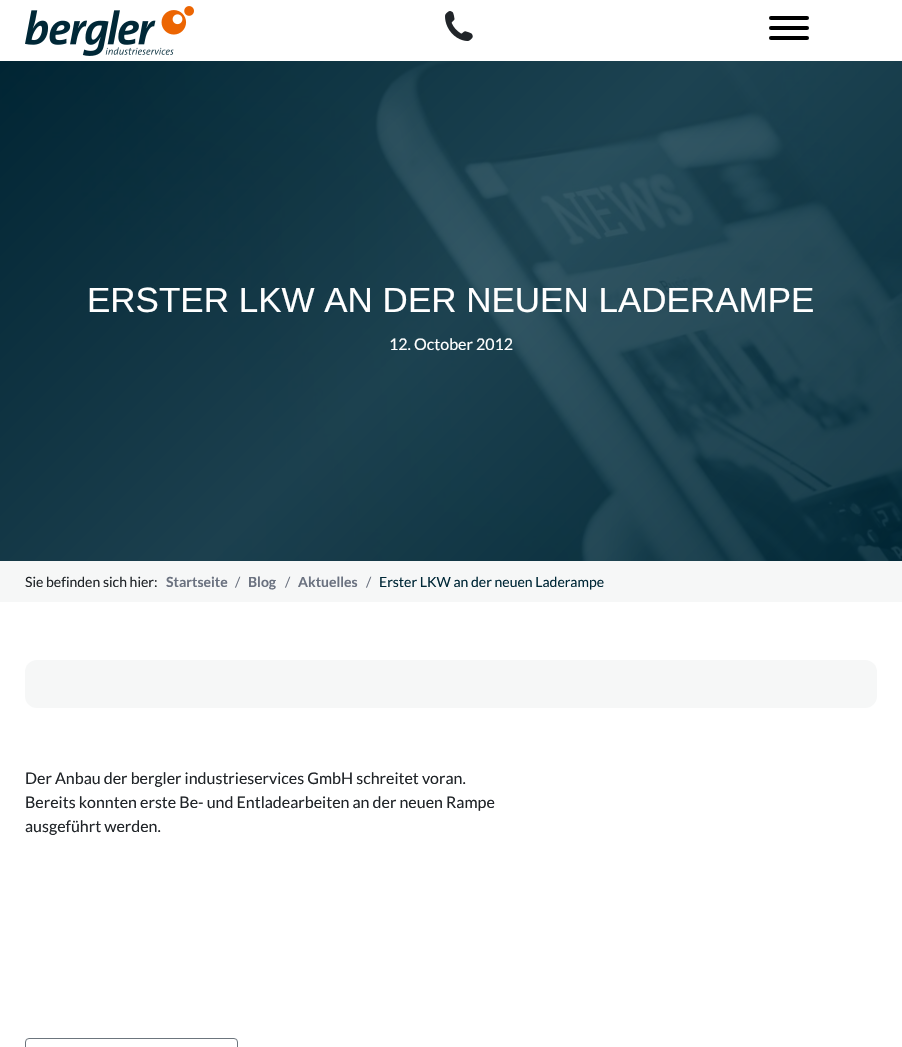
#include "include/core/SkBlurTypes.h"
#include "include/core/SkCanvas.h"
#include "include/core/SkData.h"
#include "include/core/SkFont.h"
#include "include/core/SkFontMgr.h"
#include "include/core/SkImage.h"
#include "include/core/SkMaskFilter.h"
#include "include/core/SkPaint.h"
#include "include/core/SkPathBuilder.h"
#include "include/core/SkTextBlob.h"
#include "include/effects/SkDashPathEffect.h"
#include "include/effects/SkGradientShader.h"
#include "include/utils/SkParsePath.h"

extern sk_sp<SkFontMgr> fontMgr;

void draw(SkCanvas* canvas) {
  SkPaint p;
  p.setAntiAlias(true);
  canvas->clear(SK_ColorWHITE);
  canvas->drawImageRect(SkImages::DeferredFromEncodedData(SkData::MakeFromFileName("images/1.png")), SkRect::MakeLTRB(25, 6, 194, 56), SkSamplingOptions());
  canvas->drawImageRect(SkImages::DeferredFromEncodedData(SkData::MakeFromFileName("images/2.png")), SkRect::MakeLTRB(445, 11, 473, 41), SkSamplingOptions());
  p.setColor(SK_ColorBLACK);
  canvas->drawRoundRect(SkRect::MakeLTRB(769, 26, 809, 30), 2, 2, p);
  canvas->drawRoundRect(SkRect::MakeLTRB(769, 16, 809, 20), 2, 2, p);
  canvas->drawRoundRect(SkRect::MakeLTRB(769, 36, 809, 40), 2, 2, p);
  canvas->drawImageRect(SkImages::DeferredFromEncodedData(SkData::MakeFromFileName("images/3.png")), SkRect::MakeLTRB(0, 61, 902, 561), SkSamplingOptions());
  p.setColor(SkColorSetRGB(246, 247, 247));
  canvas->drawRect(SkRect::MakeLTRB(0, 561, 902, 602), p);
  canvas->drawRoundRect(SkRect::MakeLTRB(25, 660, 877, 708), 12, 12, p);
  p.setStyle(SkPaint::kStroke_Style);
  p.setStrokeWidth(1);
  p.setColor(SkColorSetRGB(108, 117, 125));
  canvas->drawRoundRect(SkRect::MakeLTRB(25.5f, 1038.5f, 237.5f, 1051.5f), 3.5f, 3.5f, p);
  SkFont font1(fontMgr->matchFamilyStyle("Liberation Sans", SkFontStyle::Normal()), 35);
  font1.setSubpixel(true);
  p.setStyle(SkPaint::kFill_Style);
  p.setColor(SK_ColorWHITE);
  canvas->drawString("ERSTER LKW AN DER NEUEN LADERAMPE", 87, 312, font1, p);
  SkFont font2(fontMgr->matchFamilyStyle("Lato", SkFontStyle::Normal()), 16);
  font2.setSubpixel(true);
  canvas->drawString("12. October 2012", 389, 350, font2, p);
  SkFont font3(fontMgr->matchFamilyStyle("Lato", SkFontStyle::Normal()), 14);
  font3.setSubpixel(true);
  p.setColor(SkColorSetRGB(33, 37, 41));
  canvas->drawString("Sie befinden sich hier:", 25, 587, font3, p);
  SkFont font4(fontMgr->matchFamilyStyle("Lato", SkFontStyle::Bold()), 14);
  font4.setSubpixel(true);
  p.setColor(SkColorSetRGB(107, 114, 128));
  canvas->drawString("Startseite", 166, 587, font4, p);
  canvas->drawString("/", 235, 587, font3, p);
  canvas->drawString("Blog", 248, 587, font4, p);
  canvas->drawString("/", 285, 587, font3, p);
  canvas->drawString("Aktuelles", 298, 587, font4, p);
  canvas->drawString("/", 366, 587, font3, p);
  p.setColor(SkColorSetRGB(0, 40, 55));
  canvas->drawString("Erster LKW an der neuen Laderampe", 379, 587, font3, p);
  p.setColor(SkColorSetRGB(33, 37, 41));
  canvas->drawString("Der Anbau der bergler industrieservices GmbH schreitet voran.", 25, 784, font2, p);
  canvas->drawString("Bereits konnten erste Be- und Entladearbeiten an der neuen Rampe", 25, 808, font2, p);
  canvas->drawString("ausgeführt werden.", 25, 832, font2, p);
}
